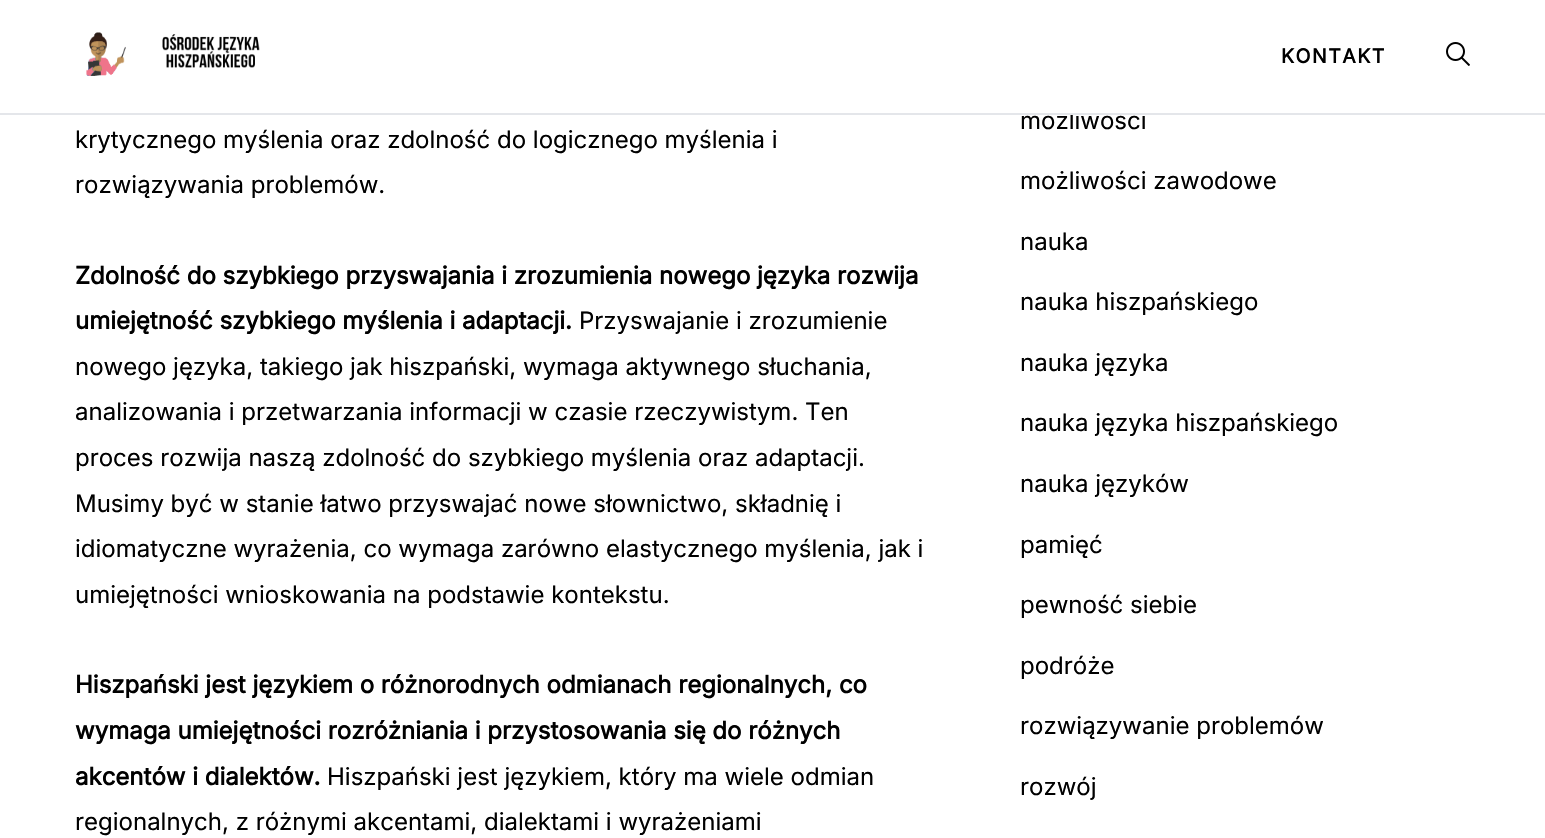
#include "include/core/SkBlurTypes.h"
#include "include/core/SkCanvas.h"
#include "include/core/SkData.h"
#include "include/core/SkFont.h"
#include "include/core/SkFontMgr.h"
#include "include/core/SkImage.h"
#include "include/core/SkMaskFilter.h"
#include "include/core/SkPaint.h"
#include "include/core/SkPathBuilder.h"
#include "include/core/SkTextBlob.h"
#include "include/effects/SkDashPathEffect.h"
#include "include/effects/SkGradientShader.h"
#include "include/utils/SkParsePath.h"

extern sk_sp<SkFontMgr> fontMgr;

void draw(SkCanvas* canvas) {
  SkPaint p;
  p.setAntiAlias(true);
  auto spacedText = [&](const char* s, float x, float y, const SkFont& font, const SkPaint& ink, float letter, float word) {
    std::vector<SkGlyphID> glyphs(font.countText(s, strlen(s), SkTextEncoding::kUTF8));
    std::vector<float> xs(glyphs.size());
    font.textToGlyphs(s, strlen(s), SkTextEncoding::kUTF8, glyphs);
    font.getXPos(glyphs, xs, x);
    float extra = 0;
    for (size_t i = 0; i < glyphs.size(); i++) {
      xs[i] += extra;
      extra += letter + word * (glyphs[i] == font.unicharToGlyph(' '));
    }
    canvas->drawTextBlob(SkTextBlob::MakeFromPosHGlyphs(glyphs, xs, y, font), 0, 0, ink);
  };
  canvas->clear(SK_ColorWHITE);
  canvas->drawImageRect(SkImages::DeferredFromEncodedData(SkData::MakeFromFileName("images/1.png")), SkRect::MakeLTRB(86, 32, 260, 76), SkSamplingOptions());
  canvas->drawImageRect(SkImages::DeferredFromEncodedData(SkData::MakeFromFileName("images/2.png")), SkRect::MakeLTRB(1446, 42, 1470, 66), SkSamplingOptions());
  SkFont font1(fontMgr->matchFamilyStyle("Inter", SkFontStyle::Bold()), 19.5f);
  font1.setSubpixel(true);
  p.setColor(SK_ColorBLACK);
  spacedText("KONTAKT", 1281, 63, font1, p, 1.5f, 0);
  SkFont font2(fontMgr->matchFamilyStyle("Inter", SkFontStyle::Normal()), 24);
  font2.setSubpixel(true);
  canvas->drawString("krytycznego myślenia oraz zdolność do logicznego myślenia i", 75, 148, font2, p);
  canvas->drawString("rozwiązywania problemów.", 75, 193, font2, p);
  SkFont font3(fontMgr->matchFamilyStyle("Inter", SkFontStyle::Bold()), 24);
  font3.setSubpixel(true);
  canvas->drawString("Zdolność do szybkiego przyswajania i zrozumienia nowego języka rozwija", 75, 284, font3, p);
  canvas->drawString("umiejętność szybkiego myślenia i adaptacji.", 75, 329, font3, p);
  canvas->drawString("Przyswajanie i zrozumienie", 579, 329, font2, p);
  canvas->drawString("nowego języka, takiego jak hiszpański, wymaga aktywnego słuchania,", 75, 375, font2, p);
  canvas->drawString("analizowania i przetwarzania informacji w czasie rzeczywistym. Ten", 75, 420, font2, p);
  canvas->drawString("proces rozwija naszą zdolność do szybkiego myślenia oraz adaptacji.", 75, 466, font2, p);
  canvas->drawString("Musimy być w stanie łatwo przyswajać nowe słownictwo, składnię i", 75, 512, font2, p);
  canvas->drawString("idiomatyczne wyrażenia, co wymaga zarówno elastycznego myślenia, jak i", 75, 557, font2, p);
  canvas->drawString("umiejętności wnioskowania na podstawie kontekstu.", 75, 603, font2, p);
  canvas->drawString("Hiszpański jest językiem o różnorodnych odmianach regionalnych, co", 75, 693, font3, p);
  canvas->drawString("wymaga umiejętności rozróżniania i przystosowania się do różnych", 75, 739, font3, p);
  canvas->drawString("akcentów i dialektów.", 75, 785, font3, p);
  canvas->drawString("Hiszpański jest językiem, który ma wiele odmian", 327, 785, font2, p);
  canvas->drawString("regionalnych, z różnymi akcentami, dialektami i wyrażeniami", 75, 830, font2, p);
  canvas->drawString("możliwości", 1020, 129, font2, p);
  p.setColor(SkColorSetRGB(228, 230, 234));
  canvas->drawRect(SkRect::MakeLTRB(0, 113, 1545, 115), p);
  p.setColor(SK_ColorWHITE);
  canvas->drawRect(SkRect::MakeLTRB(1060, 110, 1146, 113), p);
  p.setColor(SK_ColorBLACK);
  canvas->drawString("możliwości zawodowe", 1020, 189, font2, p);
  canvas->drawString("nauka", 1020, 250, font2, p);
  canvas->drawString("nauka hiszpańskiego", 1020, 310, font2, p);
  canvas->drawString("nauka języka", 1020, 371, font2, p);
  canvas->drawString("nauka języka hiszpańskiego", 1020, 431, font2, p);
  canvas->drawString("nauka języków", 1020, 492, font2, p);
  canvas->drawString("pamięć", 1020, 553, font2, p);
  canvas->drawString("pewność siebie", 1020, 613, font2, p);
  canvas->drawString("podróże", 1020, 674, font2, p);
  canvas->drawString("rozwiązywanie problemów", 1020, 734, font2, p);
  canvas->drawString("rozwój", 1020, 795, font2, p);
}
